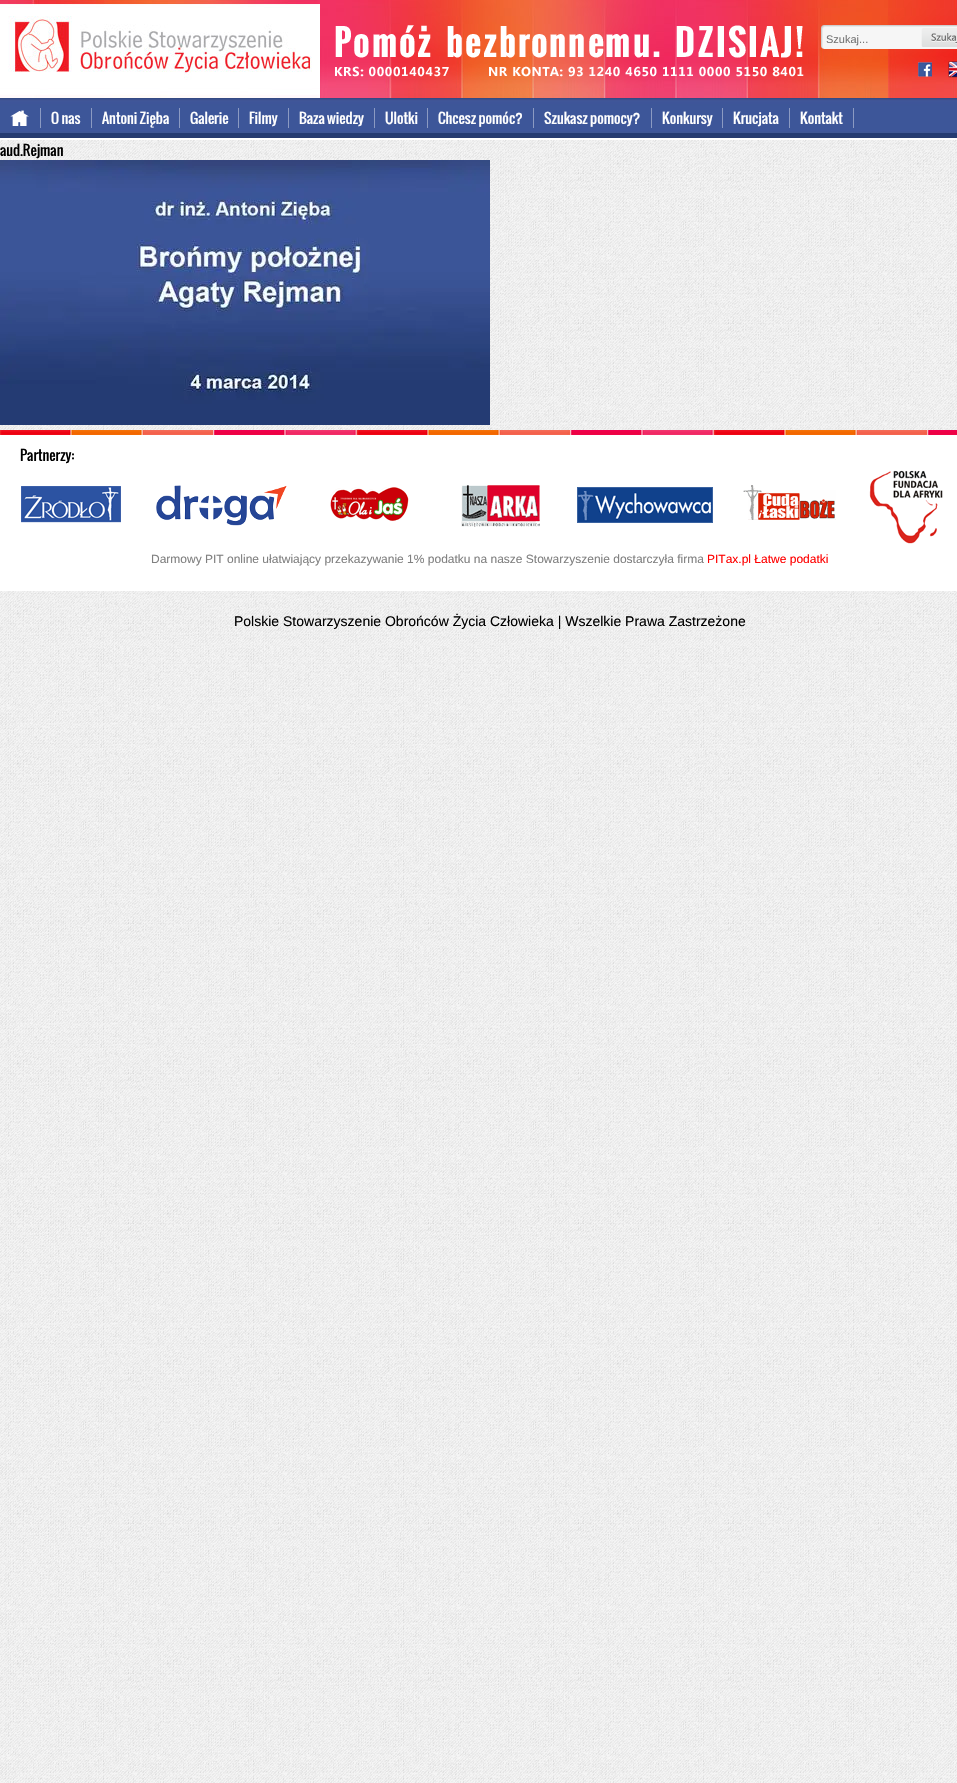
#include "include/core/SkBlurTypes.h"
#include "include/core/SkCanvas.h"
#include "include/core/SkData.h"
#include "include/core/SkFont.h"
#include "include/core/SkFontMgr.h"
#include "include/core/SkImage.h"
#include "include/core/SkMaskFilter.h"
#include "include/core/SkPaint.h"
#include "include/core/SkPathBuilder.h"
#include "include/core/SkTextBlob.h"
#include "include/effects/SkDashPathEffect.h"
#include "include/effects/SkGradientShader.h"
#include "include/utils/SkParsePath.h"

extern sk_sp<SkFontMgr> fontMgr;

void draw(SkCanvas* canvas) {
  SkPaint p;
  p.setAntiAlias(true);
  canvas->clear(SK_ColorWHITE);
  canvas->drawImageRect(SkImages::DeferredFromEncodedData(SkData::MakeFromFileName("images/1.png")), SkRect::MakeLTRB(0, 140, 957, 1783), SkSamplingOptions());
  canvas->drawImageRect(SkImages::DeferredFromEncodedData(SkData::MakeFromFileName("images/2.png")), SkRect::MakeLTRB(0, 0, 957, 98), SkSamplingOptions());
  canvas->drawImageRect(SkImages::DeferredFromEncodedData(SkData::MakeFromFileName("images/3.png")), SkRect::MakeLTRB(0, 0, 320, 95), SkSamplingOptions());
  canvas->drawImageRect(SkImages::DeferredFromEncodedData(SkData::MakeFromFileName("images/4.png")), SkRect::MakeLTRB(335, 25, 804, 77), SkSamplingOptions());
  canvas->drawImageRect(SkImages::DeferredFromEncodedData(SkData::MakeFromFileName("images/5.png")), SkRect::MakeLTRB(821, 25, 957, 49), SkSamplingOptions());
  canvas->drawImageRect(SkImages::DeferredFromEncodedData(SkData::MakeFromFileName("images/6.png")), SkRect::MakeLTRB(921, 28, 957, 47), SkSamplingOptions());
  canvas->drawImageRect(SkImages::DeferredFromEncodedData(SkData::MakeFromFileName("images/7.png")), SkRect::MakeLTRB(918, 62, 932, 77), SkSamplingOptions());
  canvas->drawImageRect(SkImages::DeferredFromEncodedData(SkData::MakeFromFileName("images/8.png")), SkRect::MakeLTRB(948, 61, 957, 78), SkSamplingOptions());
  canvas->drawImageRect(SkImages::DeferredFromEncodedData(SkData::MakeFromFileName("images/9.png")), SkRect::MakeLTRB(0, 98, 957, 140), SkSamplingOptions());
  canvas->drawImageRect(SkImages::DeferredFromEncodedData(SkData::MakeFromFileName("images/10.png")), SkRect::MakeLTRB(10, 110, 29, 126), SkSamplingOptions());
  p.setColor(SkColorSetRGB(139, 154, 194));
  canvas->drawRect(SkRect::MakeLTRB(40, 108, 41, 128), p);
  canvas->drawRect(SkRect::MakeLTRB(91, 108, 92, 128), p);
  canvas->drawRect(SkRect::MakeLTRB(179, 108, 180, 128), p);
  canvas->drawRect(SkRect::MakeLTRB(238, 108, 239, 128), p);
  canvas->drawRect(SkRect::MakeLTRB(288, 108, 289, 128), p);
  canvas->drawRect(SkRect::MakeLTRB(374, 108, 375, 128), p);
  canvas->drawRect(SkRect::MakeLTRB(427, 108, 428, 128), p);
  canvas->drawRect(SkRect::MakeLTRB(533, 108, 534, 128), p);
  canvas->drawRect(SkRect::MakeLTRB(651, 108, 652, 128), p);
  canvas->drawRect(SkRect::MakeLTRB(722, 108, 723, 128), p);
  canvas->drawRect(SkRect::MakeLTRB(789, 108, 790, 128), p);
  canvas->drawRect(SkRect::MakeLTRB(853, 108, 854, 128), p);
  canvas->drawImageRect(SkImages::DeferredFromEncodedData(SkData::MakeFromFileName("images/11.png")), SkRect::MakeLTRB(0, 160, 490, 425), SkSamplingOptions());
  canvas->drawImageRect(SkImages::DeferredFromEncodedData(SkData::MakeFromFileName("images/12.png")), SkRect::MakeLTRB(0, 430, 957, 435), SkSamplingOptions());
  p.setColor(SK_ColorWHITE);
  canvas->drawRect(SkRect::MakeLTRB(0, 435, 957, 591), p);
  canvas->drawImageRect(SkImages::DeferredFromEncodedData(SkData::MakeFromFileName("images/13.png")), SkRect::MakeLTRB(21, 486, 121, 523), SkSamplingOptions());
  canvas->drawImageRect(SkImages::DeferredFromEncodedData(SkData::MakeFromFileName("images/14.png")), SkRect::MakeLTRB(156, 485, 287, 526), SkSamplingOptions());
  canvas->drawImageRect(SkImages::DeferredFromEncodedData(SkData::MakeFromFileName("images/15.png")), SkRect::MakeLTRB(330, 487, 409, 521), SkSamplingOptions());
  canvas->drawImageRect(SkImages::DeferredFromEncodedData(SkData::MakeFromFileName("images/16.png")), SkRect::MakeLTRB(461, 485, 540, 527), SkSamplingOptions());
  canvas->drawImageRect(SkImages::DeferredFromEncodedData(SkData::MakeFromFileName("images/17.png")), SkRect::MakeLTRB(577, 487, 713, 523), SkSamplingOptions());
  canvas->drawImageRect(SkImages::DeferredFromEncodedData(SkData::MakeFromFileName("images/18.png")), SkRect::MakeLTRB(743, 485, 836, 520), SkSamplingOptions());
  canvas->drawImageRect(SkImages::DeferredFromEncodedData(SkData::MakeFromFileName("images/19.png")), SkRect::MakeLTRB(869, 470, 943, 544), SkSamplingOptions());
  SkFont font1(fontMgr->matchFamilyStyle("Liberation Sans", SkFontStyle::Normal()), 11);
  font1.setSubpixel(true);
  p.setColor(SkColorSetRGB(117, 117, 117));
  canvas->drawString("Szukaj...", 826, 43, font1, p);
  SkFont font2(fontMgr->matchFamilyStyle("oswald", SkFontStyle::Normal()), 14);
  font2.setSubpixel(true);
  p.setColor(SK_ColorWHITE);
  canvas->drawString("O nas", 51, 124, font2, p);
  canvas->drawString("Antoni Zięba", 102, 124, font2, p);
  canvas->drawString("Galerie", 190, 124, font2, p);
  canvas->drawString("Filmy", 249, 124, font2, p);
  canvas->drawString("Baza wiedzy", 299, 124, font2, p);
  canvas->drawString("Ulotki", 385, 124, font2, p);
  canvas->drawString("Chcesz pomóc?", 438, 124, font2, p);
  canvas->drawString("Szukasz pomocy?", 544, 124, font2, p);
  canvas->drawString("Konkursy", 662, 124, font2, p);
  canvas->drawString("Krucjata", 733, 124, font2, p);
  canvas->drawString("Kontakt", 800, 124, font2, p);
  p.setColor(SK_ColorBLACK);
  canvas->drawString("aud.Rejman", 0, 156, font2, p);
  canvas->drawString("Partnerzy:", 20, 461, font2, p);
  SkFont font3(fontMgr->matchFamilyStyle("Liberation Sans", SkFontStyle::Normal()), 12);
  font3.setSubpixel(true);
  p.setColor(SkColorSetRGB(128, 128, 128));
  canvas->drawString("Darmowy PIT online ułatwiający przekazywanie 1% podatku na nasze Stowarzyszenie dostarczyła firma", 151, 563, font3, p);
  p.setColor(SkColorSetRGB(255, 0, 0));
  canvas->drawString("PITax.pl Łatwe podatki", 707, 563, font3, p);
  SkFont font4(fontMgr->matchFamilyStyle("Liberation Sans", SkFontStyle::Normal()), 14);
  font4.setSubpixel(true);
  p.setColor(SK_ColorBLACK);
  canvas->drawString("Polskie Stowarzyszenie Obrońców Życia Człowieka | Wszelkie Prawa Zastrzeżone", 234, 626, font4, p);
}
